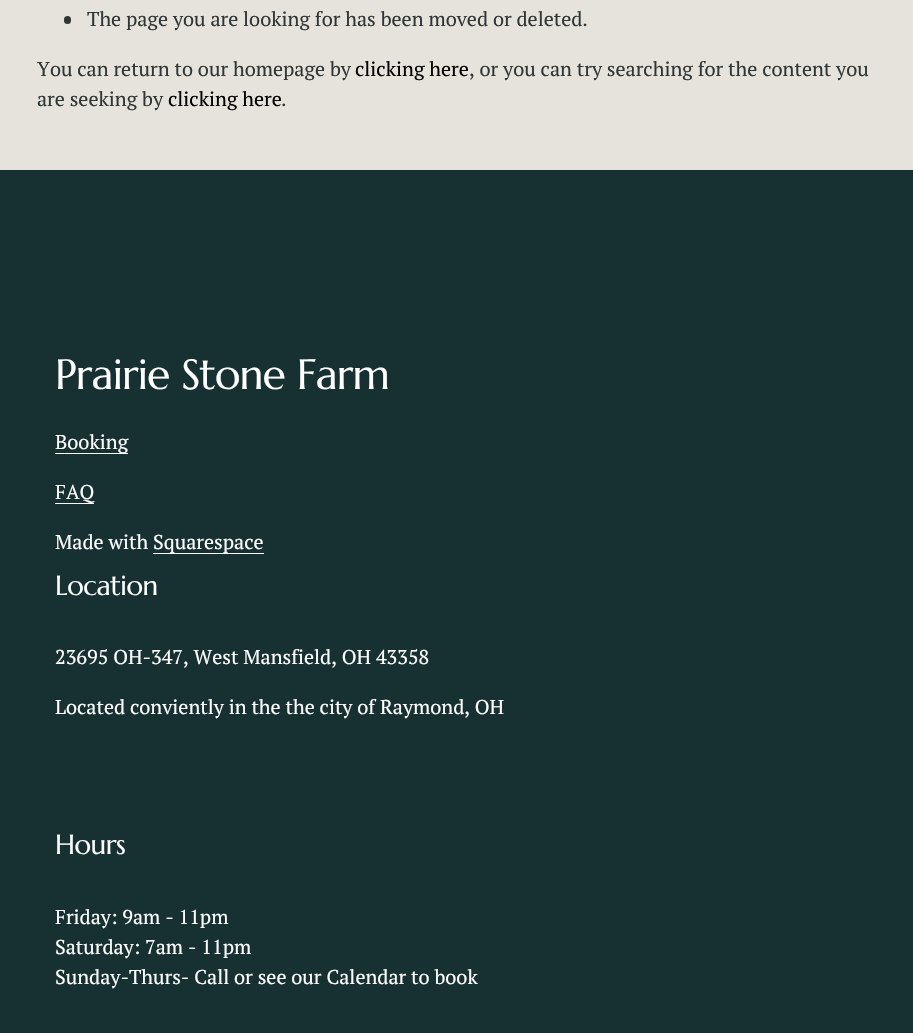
#include "include/core/SkBlurTypes.h"
#include "include/core/SkCanvas.h"
#include "include/core/SkData.h"
#include "include/core/SkFont.h"
#include "include/core/SkFontMgr.h"
#include "include/core/SkImage.h"
#include "include/core/SkMaskFilter.h"
#include "include/core/SkPaint.h"
#include "include/core/SkPathBuilder.h"
#include "include/core/SkTextBlob.h"
#include "include/effects/SkDashPathEffect.h"
#include "include/effects/SkGradientShader.h"
#include "include/utils/SkParsePath.h"

extern sk_sp<SkFontMgr> fontMgr;

void draw(SkCanvas* canvas) {
  SkPaint p;
  p.setAntiAlias(true);
  auto spacedText = [&](const char* s, float x, float y, const SkFont& font, const SkPaint& ink, float letter, float word) {
    std::vector<SkGlyphID> glyphs(font.countText(s, strlen(s), SkTextEncoding::kUTF8));
    std::vector<float> xs(glyphs.size());
    font.textToGlyphs(s, strlen(s), SkTextEncoding::kUTF8, glyphs);
    font.getXPos(glyphs, xs, x);
    float extra = 0;
    for (size_t i = 0; i < glyphs.size(); i++) {
      xs[i] += extra;
      extra += letter + word * (glyphs[i] == font.unicharToGlyph(' '));
    }
    canvas->drawTextBlob(SkTextBlob::MakeFromPosHGlyphs(glyphs, xs, y, font), 0, 0, ink);
  };
  canvas->clear(SkColorSetRGB(229, 227, 219));
  p.setColor(SkColorSetRGB(48, 54, 54));
  canvas->drawRoundRect(SkRect::MakeLTRB(64, 16, 71, 24), 3.5f, 3.5f, p);
  p.setColor(SkColorSetRGB(23, 49, 50));
  canvas->drawRect(SkRect::MakeLTRB(0, 170, 913, 1033), p);
  p.setColor(SK_ColorWHITE);
  canvas->drawRect(SkRect::MakeLTRB(55, 453, 128, 454), p);
  canvas->drawRect(SkRect::MakeLTRB(55, 503, 94, 504), p);
  canvas->drawRect(SkRect::MakeLTRB(153, 553, 264, 554), p);
  SkFont font1(fontMgr->matchFamilyStyle("PT Serif", SkFontStyle::Normal()), 20);
  font1.setSubpixel(true);
  p.setColor(SkColorSetRGB(48, 54, 54));
  canvas->drawString("The page you are looking for has been moved or deleted.", 87, 26, font1, p);
  canvas->drawString("You can return to our homepage by", 37, 76, font1, p);
  p.setColor(SK_ColorBLACK);
  canvas->drawString("clicking here", 355, 76, font1, p);
  p.setColor(SkColorSetRGB(48, 54, 54));
  canvas->drawString(", or you can try searching for the content you", 469, 76, font1, p);
  canvas->drawString("are seeking by", 37, 106, font1, p);
  p.setColor(SK_ColorBLACK);
  canvas->drawString("clicking here", 168, 106, font1, p);
  p.setColor(SkColorSetRGB(48, 54, 54));
  canvas->drawString(".", 281, 106, font1, p);
  SkFont font2(fontMgr->matchFamilyStyle("Marcellus", SkFontStyle::Normal()), 42.25f);
  font2.setSubpixel(true);
  p.setColor(SK_ColorWHITE);
  spacedText("Prairie Stone Farm", 55, 389, font2, p, -0.8f, 0);
  canvas->drawString("Booking", 55, 449, font1, p);
  canvas->drawString("FAQ", 55, 499, font1, p);
  canvas->drawString("Made with Squarespace", 55, 549, font1, p);
  SkFont font3(fontMgr->matchFamilyStyle("Marcellus", SkFontStyle::Normal()), 27.5f);
  font3.setSubpixel(true);
  spacedText("Location", 55, 595, font3, p, -0.5f, 0);
  canvas->drawString("23695 OH-347, West Mansfield, OH 43358", 55, 664, font1, p);
  canvas->drawString("Located conviently in the the city of Raymond, OH", 55, 714, font1, p);
  spacedText("Hours", 55, 854, font3, p, -0.5f, 0);
  canvas->drawString("Friday: 9am - 11pm", 55, 924, font1, p);
  canvas->drawString("Saturday: 7am - 11pm", 55, 954, font1, p);
  canvas->drawString("Sunday-Thurs- Call or see our Calendar to book", 55, 984, font1, p);
}
